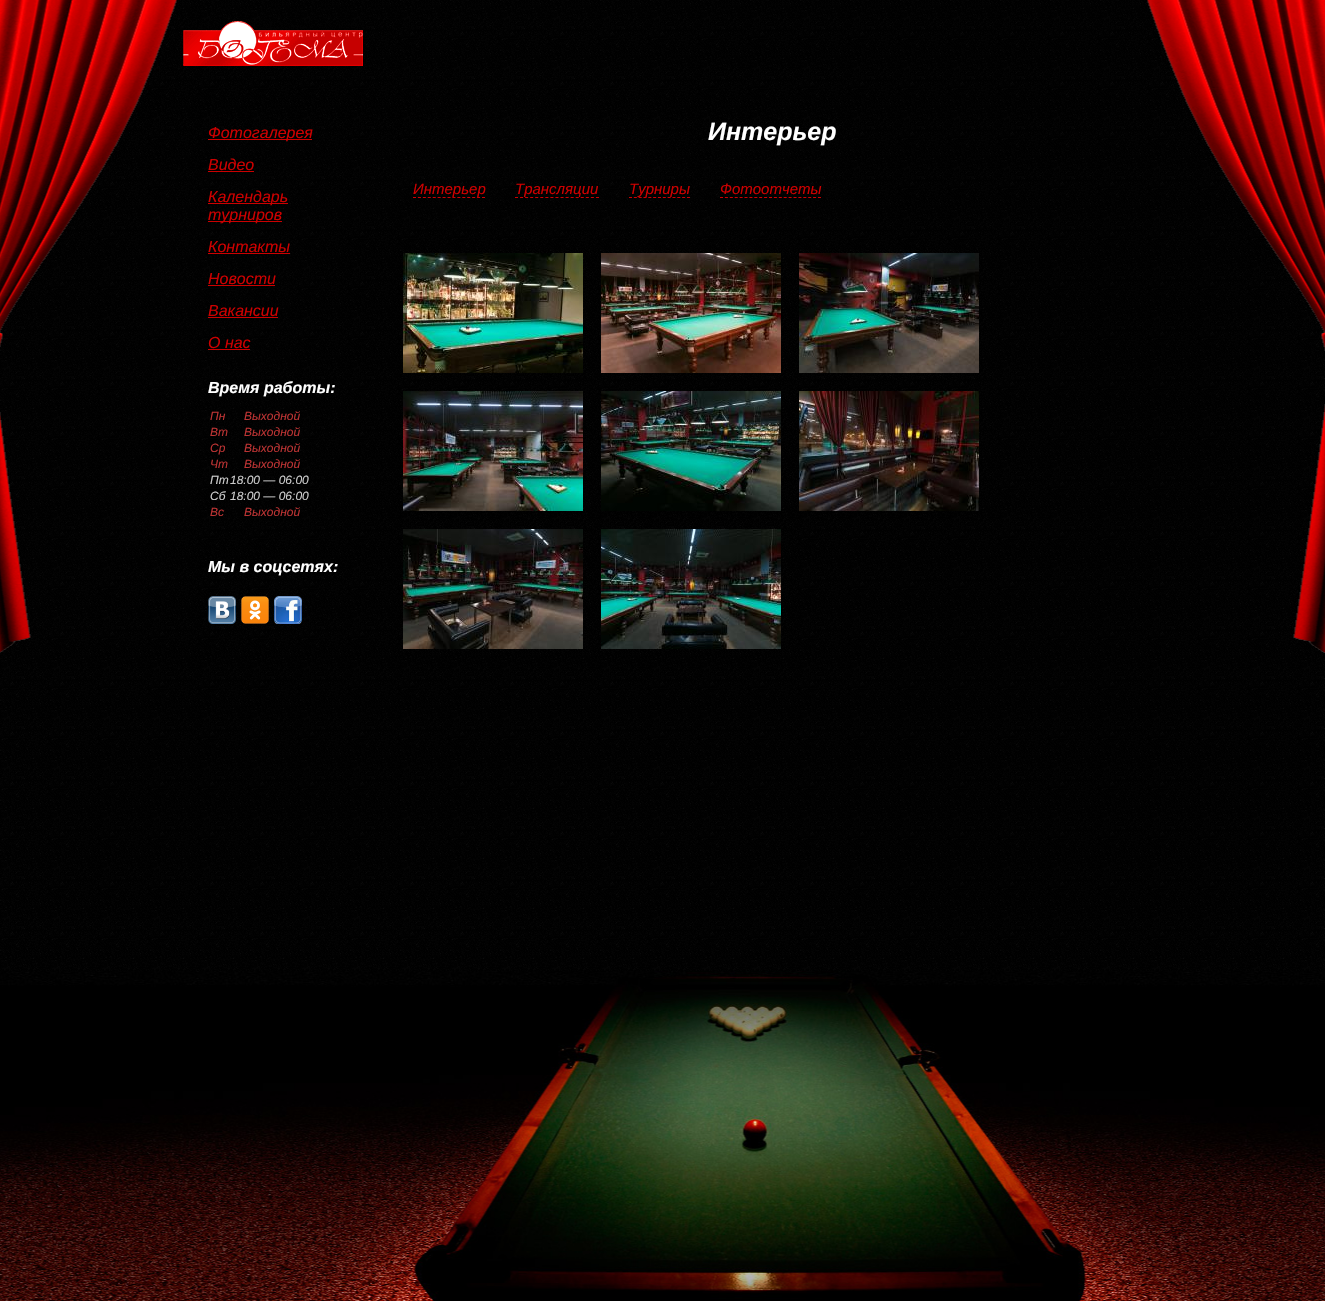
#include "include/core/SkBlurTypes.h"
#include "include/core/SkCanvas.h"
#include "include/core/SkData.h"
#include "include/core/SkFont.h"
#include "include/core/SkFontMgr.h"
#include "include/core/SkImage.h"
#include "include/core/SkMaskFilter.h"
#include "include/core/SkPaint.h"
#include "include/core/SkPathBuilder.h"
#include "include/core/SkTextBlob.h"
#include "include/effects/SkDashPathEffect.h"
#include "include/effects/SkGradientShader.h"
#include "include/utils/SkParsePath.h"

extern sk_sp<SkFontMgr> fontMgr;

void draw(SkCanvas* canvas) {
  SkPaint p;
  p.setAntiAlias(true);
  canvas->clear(SK_ColorWHITE);
  canvas->drawImageRect(SkImages::DeferredFromEncodedData(SkData::MakeFromFileName("images/1.png")), SkRect::MakeLTRB(0, 0, 1325, 971), SkSamplingOptions());
  canvas->drawImageRect(SkImages::DeferredFromEncodedData(SkData::MakeFromFileName("images/2.png")), SkRect::MakeLTRB(0, 0, 1325, 653), SkSamplingOptions());
  canvas->drawImageRect(SkImages::DeferredFromEncodedData(SkData::MakeFromFileName("images/3.png")), SkRect::MakeLTRB(0, 971, 1325, 1301), SkSamplingOptions());
  canvas->drawImageRect(SkImages::DeferredFromEncodedData(SkData::MakeFromFileName("images/4.png")), SkRect::MakeLTRB(183, 21, 363, 66), SkSamplingOptions());
  p.setColor(SkColorSetRGB(204, 0, 0));
  canvas->drawRect(SkRect::MakeLTRB(208, 139, 312, 140), p);
  canvas->drawRect(SkRect::MakeLTRB(208, 171, 254, 172), p);
  canvas->drawRect(SkRect::MakeLTRB(208, 203, 288, 204), p);
  canvas->drawRect(SkRect::MakeLTRB(208, 221, 282, 222), p);
  canvas->drawRect(SkRect::MakeLTRB(208, 253, 290, 254), p);
  canvas->drawRect(SkRect::MakeLTRB(208, 285, 275, 286), p);
  canvas->drawRect(SkRect::MakeLTRB(208, 317, 278, 318), p);
  canvas->drawRect(SkRect::MakeLTRB(208, 349, 250, 350), p);
  canvas->drawImageRect(SkImages::DeferredFromEncodedData(SkData::MakeFromFileName("images/5.png")), SkRect::MakeLTRB(208, 596, 236, 624), SkSamplingOptions());
  canvas->drawImageRect(SkImages::DeferredFromEncodedData(SkData::MakeFromFileName("images/6.png")), SkRect::MakeLTRB(241, 596, 269, 624), SkSamplingOptions());
  canvas->drawImageRect(SkImages::DeferredFromEncodedData(SkData::MakeFromFileName("images/7.png")), SkRect::MakeLTRB(274, 596, 302, 624), SkSamplingOptions());
  p.setStyle(SkPaint::kStroke_Style);
  p.setStrokeWidth(1);
  p.setPathEffect(SkDashPathEffect::Make({{3, 1.93f}}, 0));
  canvas->drawPath(SkPathBuilder().moveTo(413, 197.5f).lineTo(485, 197.5f).detach(), p);
  p.setPathEffect(nullptr);
  p.setPathEffect(SkDashPathEffect::Make({{3, 2.06f}}, 0));
  canvas->drawPath(SkPathBuilder().moveTo(515, 197.5f).lineTo(599, 197.5f).detach(), p);
  p.setPathEffect(nullptr);
  p.setPathEffect(SkDashPathEffect::Make({{3, 1.83f}}, 0));
  canvas->drawPath(SkPathBuilder().moveTo(629, 197.5f).lineTo(690, 197.5f).detach(), p);
  p.setPathEffect(nullptr);
  p.setPathEffect(SkDashPathEffect::Make({{3, 1.9f}}, 0));
  canvas->drawPath(SkPathBuilder().moveTo(720, 197.5f).lineTo(821, 197.5f).detach(), p);
  p.setPathEffect(nullptr);
  canvas->drawImageRect(SkImages::DeferredFromEncodedData(SkData::MakeFromFileName("images/8.png")), SkRect::MakeLTRB(403, 253, 583, 373), SkSamplingOptions());
  canvas->drawImageRect(SkImages::DeferredFromEncodedData(SkData::MakeFromFileName("images/9.png")), SkRect::MakeLTRB(601, 253, 781, 373), SkSamplingOptions());
  canvas->drawImageRect(SkImages::DeferredFromEncodedData(SkData::MakeFromFileName("images/10.png")), SkRect::MakeLTRB(799, 253, 979, 373), SkSamplingOptions());
  canvas->drawImageRect(SkImages::DeferredFromEncodedData(SkData::MakeFromFileName("images/11.png")), SkRect::MakeLTRB(403, 391, 583, 511), SkSamplingOptions());
  canvas->drawImageRect(SkImages::DeferredFromEncodedData(SkData::MakeFromFileName("images/12.png")), SkRect::MakeLTRB(601, 391, 781, 511), SkSamplingOptions());
  canvas->drawImageRect(SkImages::DeferredFromEncodedData(SkData::MakeFromFileName("images/13.png")), SkRect::MakeLTRB(799, 391, 979, 511), SkSamplingOptions());
  canvas->drawImageRect(SkImages::DeferredFromEncodedData(SkData::MakeFromFileName("images/14.png")), SkRect::MakeLTRB(403, 529, 583, 649), SkSamplingOptions());
  canvas->drawImageRect(SkImages::DeferredFromEncodedData(SkData::MakeFromFileName("images/15.png")), SkRect::MakeLTRB(601, 529, 781, 649), SkSamplingOptions());
  SkFont font1(fontMgr->matchFamilyStyle("Liberation Sans", SkFontStyle::Italic()), 16);
  font1.setSubpixel(true);
  p.setStyle(SkPaint::kFill_Style);
  canvas->drawString("Фотогалерея", 208, 138, font1, p);
  canvas->drawString("Видео", 208, 170, font1, p);
  canvas->drawString("Календарь", 208, 202, font1, p);
  canvas->drawString("турниров", 208, 220, font1, p);
  canvas->drawString("Контакты", 208, 252, font1, p);
  canvas->drawString("Новости", 208, 284, font1, p);
  canvas->drawString("Вакансии", 208, 316, font1, p);
  canvas->drawString("О нас", 208, 348, font1, p);
  SkFont font2(fontMgr->matchFamilyStyle("Liberation Sans", SkFontStyle::BoldItalic()), 16);
  font2.setSubpixel(true);
  p.setColor(SK_ColorWHITE);
  canvas->drawString("Время работы:", 208, 393, font2, p);
  SkFont font3(fontMgr->matchFamilyStyle("Liberation Sans", SkFontStyle::Italic()), 12);
  font3.setSubpixel(true);
  p.setColor(SkColorSetRGB(188, 51, 51));
  canvas->drawString("Пн", 210, 420, font3, p);
  canvas->drawString("Выходной", 244, 420, font3, p);
  canvas->drawString("Вт", 210, 436, font3, p);
  canvas->drawString("Выходной", 244, 436, font3, p);
  canvas->drawString("Ср", 210, 452, font3, p);
  canvas->drawString("Выходной", 244, 452, font3, p);
  canvas->drawString("Чт", 210, 468, font3, p);
  canvas->drawString("Выходной", 244, 468, font3, p);
  p.setColor(SkColorSetRGB(204, 204, 204));
  canvas->drawString("Пт", 210, 484, font3, p);
  canvas->drawString("18:00 — 06:00", 230, 484, font3, p);
  canvas->drawString("Сб", 210, 500, font3, p);
  canvas->drawString("18:00 — 06:00", 230, 500, font3, p);
  p.setColor(SkColorSetRGB(188, 51, 51));
  canvas->drawString("Вс", 210, 516, font3, p);
  canvas->drawString("Выходной", 244, 516, font3, p);
  p.setColor(SK_ColorWHITE);
  canvas->drawString("Мы в соцсетях:", 208, 572, font2, p);
  SkFont font4(fontMgr->matchFamilyStyle("Liberation Sans", SkFontStyle::BoldItalic()), 25);
  font4.setSubpixel(true);
  canvas->drawString("Интерьер", 708, 140, font4, p);
  SkFont font5(fontMgr->matchFamilyStyle("Liberation Sans", SkFontStyle::Italic()), 15);
  font5.setSubpixel(true);
  p.setColor(SkColorSetRGB(204, 0, 0));
  canvas->drawString("Интерьер", 413, 194, font5, p);
  canvas->drawString("Трансляции", 515, 194, font5, p);
  canvas->drawString("Турниры", 629, 194, font5, p);
  canvas->drawString("Фотоотчеты", 720, 194, font5, p);
}
